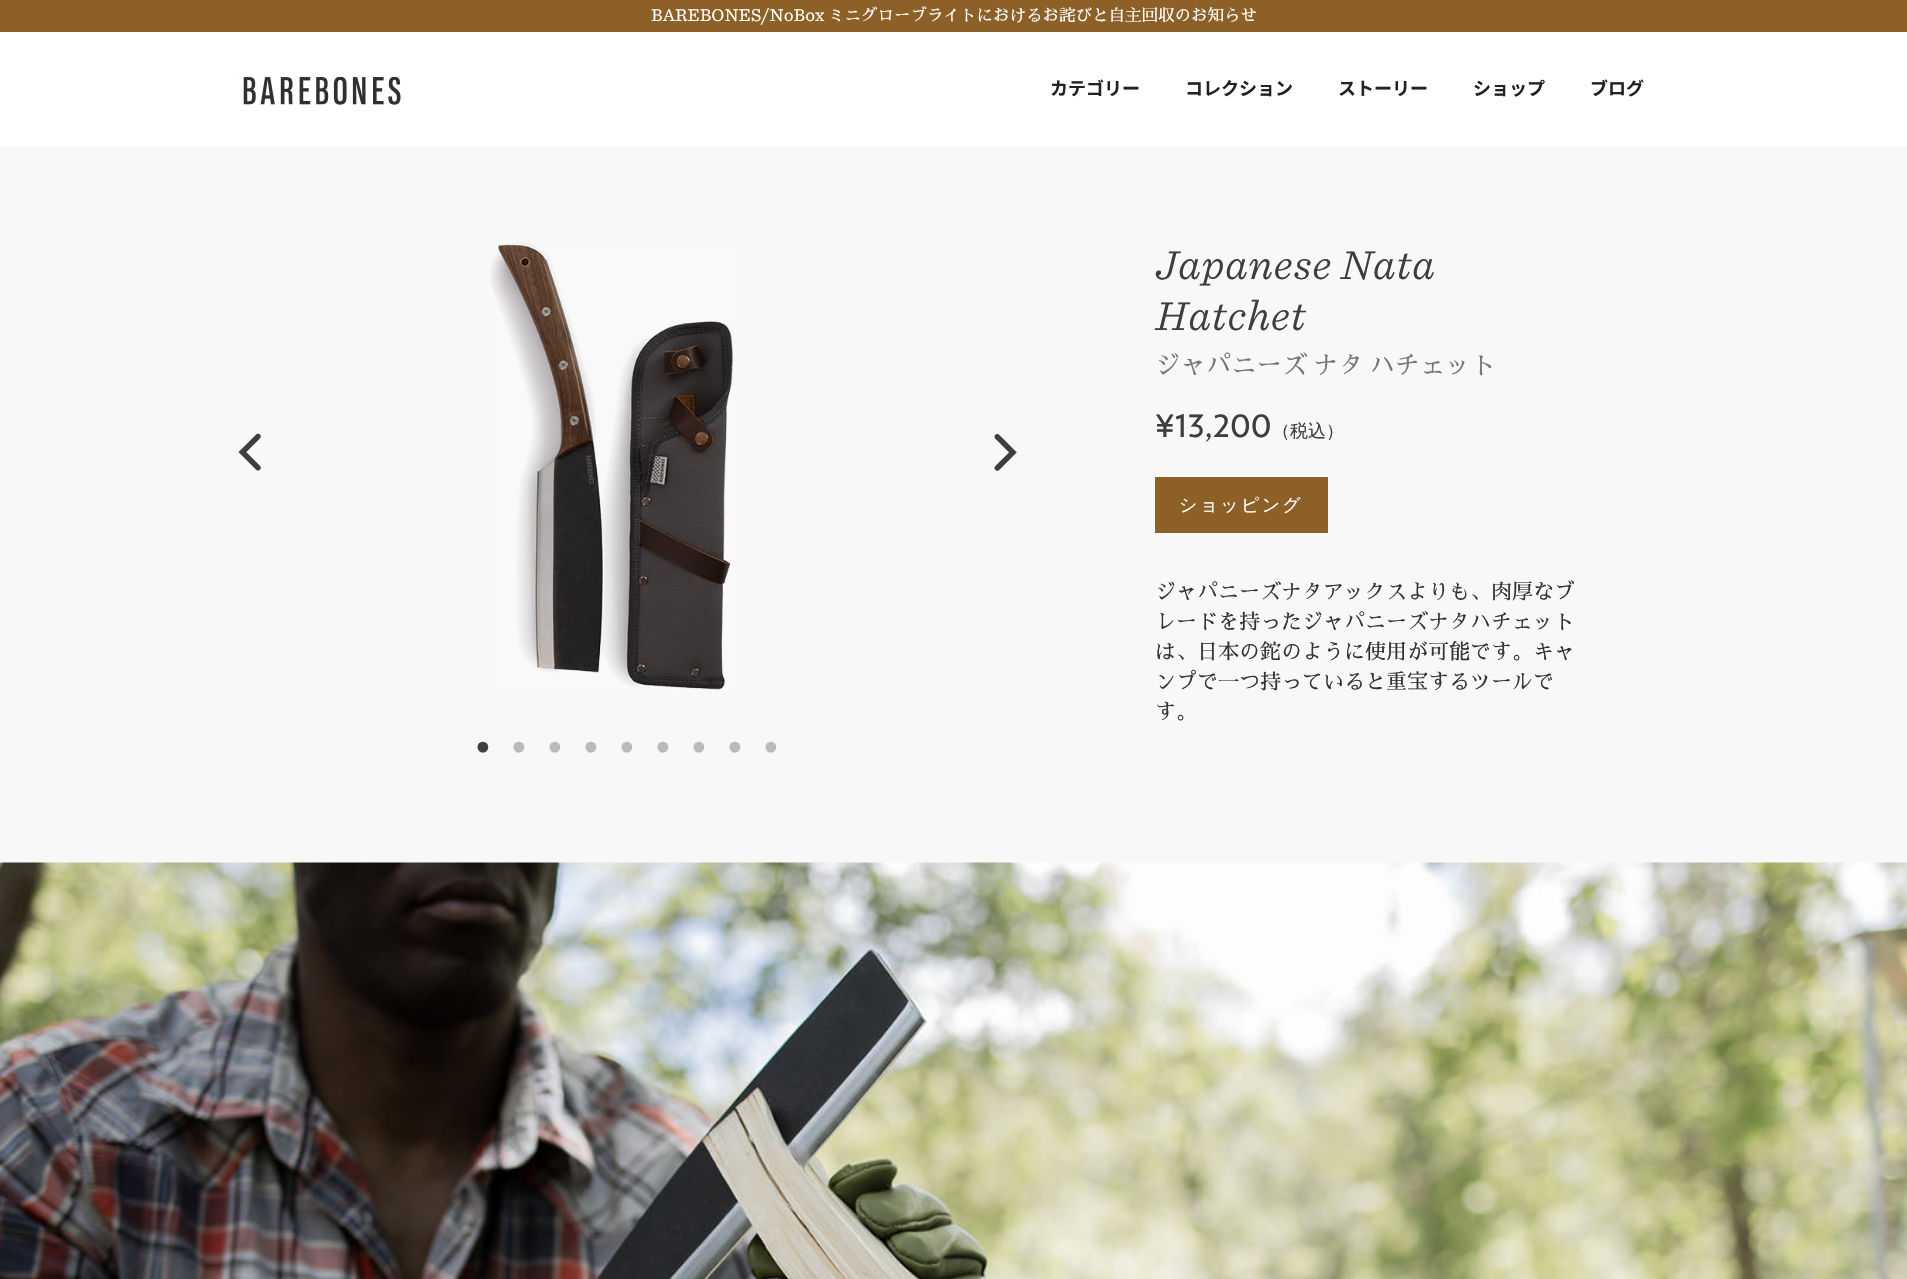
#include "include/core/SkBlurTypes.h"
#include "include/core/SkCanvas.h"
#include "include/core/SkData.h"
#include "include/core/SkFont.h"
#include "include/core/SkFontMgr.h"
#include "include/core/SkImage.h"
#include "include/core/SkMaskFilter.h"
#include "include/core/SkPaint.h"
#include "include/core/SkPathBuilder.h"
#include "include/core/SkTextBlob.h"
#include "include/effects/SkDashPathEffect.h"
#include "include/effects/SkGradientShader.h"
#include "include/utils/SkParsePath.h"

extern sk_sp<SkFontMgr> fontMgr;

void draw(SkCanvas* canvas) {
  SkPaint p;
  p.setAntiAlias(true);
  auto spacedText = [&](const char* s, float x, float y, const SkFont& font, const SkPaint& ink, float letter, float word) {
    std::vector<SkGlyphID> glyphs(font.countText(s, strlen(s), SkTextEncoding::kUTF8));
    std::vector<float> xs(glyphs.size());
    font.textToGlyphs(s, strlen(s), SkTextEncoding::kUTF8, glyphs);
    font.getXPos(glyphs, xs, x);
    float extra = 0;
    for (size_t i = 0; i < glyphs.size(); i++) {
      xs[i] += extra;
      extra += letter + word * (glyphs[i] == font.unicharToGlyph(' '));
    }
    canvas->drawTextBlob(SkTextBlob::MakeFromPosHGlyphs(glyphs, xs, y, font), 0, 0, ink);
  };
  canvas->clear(SkColorSetRGB(248, 248, 248));
  p.setColor(SK_ColorWHITE);
  canvas->drawRect(SkRect::MakeLTRB(0, 32, 1907, 146), p);
  p.setColor(SkColorSetRGB(140, 96, 39));
  canvas->drawRect(SkRect::MakeLTRB(0, 0, 1907, 32), p);
  canvas->drawImageRect(SkImages::DeferredFromEncodedData(SkData::MakeFromFileName("images/1.png")), SkRect::MakeLTRB(243, 77, 401, 105), SkSamplingOptions());
  canvas->drawRect(SkRect::MakeLTRB(1155, 477, 1328, 533), p);
  canvas->drawImageRect(SkImages::DeferredFromEncodedData(SkData::MakeFromFileName("images/2.png")), SkRect::MakeLTRB(238, 433, 261, 471), SkSamplingOptions());
  canvas->drawImageRect(SkImages::DeferredFromEncodedData(SkData::MakeFromFileName("images/3.png")), SkRect::MakeLTRB(490, 242, 737, 692), SkSamplingOptions());
  canvas->drawImageRect(SkImages::DeferredFromEncodedData(SkData::MakeFromFileName("images/4.png")), SkRect::MakeLTRB(994, 434, 1017, 471), SkSamplingOptions());
  canvas->drawImageRect(SkImages::DeferredFromEncodedData(SkData::MakeFromFileName("images/5.png")), SkRect::MakeLTRB(0, 862, 1907, 1279), SkSamplingOptions());
  SkFont font1(fontMgr->matchFamilyStyle("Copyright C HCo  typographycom", SkFontStyle::Normal()), 16.5f);
  font1.setSubpixel(true);
  p.setColor(SK_ColorWHITE);
  canvas->drawString("BAREBONES/NoBox", 651, 21, font1, p);
  SkFont font2(fontMgr->matchFamilyStyle("Sawarabi Mincho", SkFontStyle::Normal()), 16.5f);
  font2.setSubpixel(true);
  canvas->drawString("ミニグローブライトにおけるお詫びと自主回収のお知らせ", 828, 21, font2, p);
  SkFont font3(fontMgr->matchFamilyStyle("Noto Sans JP", SkFontStyle::Bold()), 18);
  font3.setSubpixel(true);
  p.setColor(SkColorSetRGB(34, 34, 34));
  canvas->drawString("カテゴリー", 1050, 95, font3, p);
  canvas->drawString("コレクション", 1185, 95, font3, p);
  canvas->drawString("ストーリー", 1338, 95, font3, p);
  canvas->drawString("ショップ", 1473, 95, font3, p);
  canvas->drawString("ブログ", 1590, 95, font3, p);
  SkFont font4(fontMgr->matchFamilyStyle("Copyright C HCo  typographycom", SkFontStyle(300, SkFontStyle::kNormal_Width, SkFontStyle::kItalic_Slant)), 39);
  font4.setSubpixel(true);
  p.setColor(SkColorSetRGB(62, 62, 62));
  canvas->drawString("Japanese Nata", 1155, 279, font4, p);
  canvas->drawString("Hatchet", 1155, 330, font4, p);
  SkFont font5(fontMgr->matchFamilyStyle("Sawarabi Mincho", SkFontStyle::Normal()), 25.4f);
  font5.setSubpixel(true);
  p.setColor(SkColorSetRGB(119, 119, 119));
  spacedText("ジャパニーズ ナタ ハチェット", 1155, 374, font5, p, 0, -2);
  SkFont font6(fontMgr->matchFamilyStyle("Copyright C HCo  typographycom", SkFontStyle(300, SkFontStyle::kNormal_Width, SkFontStyle::kUpright_Slant)), 39);
  font6.setSubpixel(true);
  p.setColor(SkColorSetRGB(62, 62, 62));
  canvas->drawString("¥13,200", 1155, 437, font6, p);
  SkFont font7(fontMgr->matchFamilyStyle("WenQuanYi Zen Hei", SkFontStyle(500, SkFontStyle::kNormal_Width, SkFontStyle::kUpright_Slant)), 18);
  font7.setSubpixel(true);
  canvas->drawString("（税込）", 1272, 437, font7, p);
  p.setColor(SK_ColorWHITE);
  spacedText("ショッピング", 1179, 511, font7, p, 2.25f, 0);
  SkFont font8(fontMgr->matchFamilyStyle("Sawarabi Mincho", SkFontStyle::Normal()), 21);
  font8.setSubpixel(true);
  p.setColor(SkColorSetRGB(51, 51, 51));
  canvas->drawString("ジャパニーズナタアックスよりも、肉厚なブ", 1155, 599, font8, p);
  canvas->drawString("レードを持ったジャパニーズナタハチェット", 1155, 629, font8, p);
  canvas->drawString("は、日本の鉈のように使用が可能です。キャ", 1155, 659, font8, p);
  canvas->drawString("ンプで一つ持っていると重宝するツールで", 1155, 689, font8, p);
  canvas->drawString("す。", 1155, 719, font8, p);
  SkFont font9(fontMgr->matchFamilyStyle("Liberation Serif", SkFontStyle::Normal()), 45);
  font9.setSubpixel(true);
  p.setColor(SkColorSetRGB(62, 62, 62));
  canvas->drawString("•", 475, 762, font9, p);
  p.setColor(SkColorSetRGB(186, 186, 186));
  canvas->drawString("•", 511, 762, font9, p);
  canvas->drawString("•", 547, 762, font9, p);
  canvas->drawString("•", 583, 762, font9, p);
  canvas->drawString("•", 619, 762, font9, p);
  canvas->drawString("•", 655, 762, font9, p);
  canvas->drawString("•", 691, 762, font9, p);
  canvas->drawString("•", 727, 762, font9, p);
  canvas->drawString("•", 763, 762, font9, p);
}
